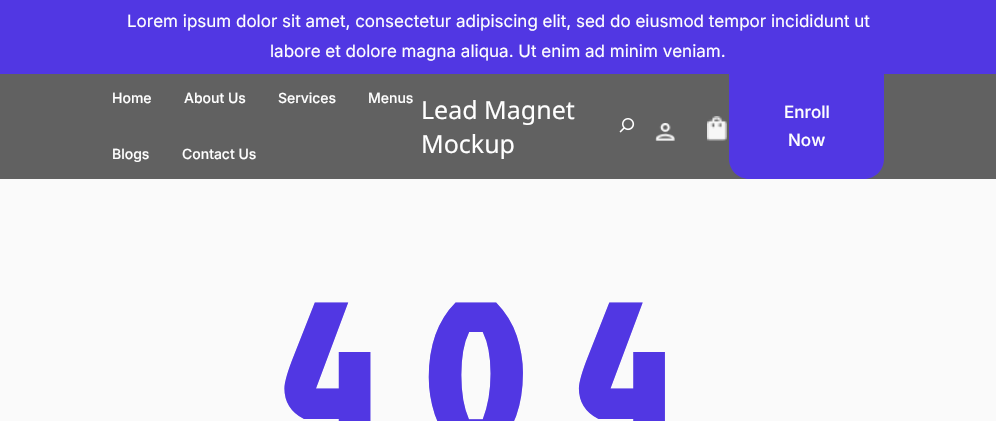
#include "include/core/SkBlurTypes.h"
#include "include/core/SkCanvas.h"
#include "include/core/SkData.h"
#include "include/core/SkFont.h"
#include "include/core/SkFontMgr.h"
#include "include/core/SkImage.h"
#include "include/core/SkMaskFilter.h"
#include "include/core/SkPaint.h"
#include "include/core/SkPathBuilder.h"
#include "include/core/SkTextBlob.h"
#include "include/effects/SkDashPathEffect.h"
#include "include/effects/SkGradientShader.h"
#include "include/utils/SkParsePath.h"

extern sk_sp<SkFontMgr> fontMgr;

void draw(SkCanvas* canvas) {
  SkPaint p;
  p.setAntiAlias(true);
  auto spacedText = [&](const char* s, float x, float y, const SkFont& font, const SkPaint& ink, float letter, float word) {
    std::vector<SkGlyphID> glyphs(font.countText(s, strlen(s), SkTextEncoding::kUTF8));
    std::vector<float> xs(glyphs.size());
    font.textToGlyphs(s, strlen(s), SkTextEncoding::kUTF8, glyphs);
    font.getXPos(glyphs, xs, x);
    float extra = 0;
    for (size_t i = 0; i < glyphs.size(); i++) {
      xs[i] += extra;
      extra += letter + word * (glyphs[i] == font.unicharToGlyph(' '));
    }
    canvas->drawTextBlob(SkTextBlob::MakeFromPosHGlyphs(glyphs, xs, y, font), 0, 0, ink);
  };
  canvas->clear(SkColorSetRGB(250, 250, 250));
  p.setColor(SkColorSetRGB(81, 55, 227));
  canvas->drawRect(SkRect::MakeLTRB(0, 0, 996, 74), p);
  p.setColor(SkColorSetRGB(97, 97, 97));
  canvas->drawRect(SkRect::MakeLTRB(0, 74, 996, 179), p);
  canvas->drawImageRect(SkImages::DeferredFromEncodedData(SkData::MakeFromFileName("images/1.png")), SkRect::MakeLTRB(619, 118, 635, 133), SkSamplingOptions());
  canvas->drawImageRect(SkImages::DeferredFromEncodedData(SkData::MakeFromFileName("images/2.png")), SkRect::MakeLTRB(655, 123, 675, 141), SkSamplingOptions());
  canvas->drawImageRect(SkImages::DeferredFromEncodedData(SkData::MakeFromFileName("images/3.png")), SkRect::MakeLTRB(707, 116, 727, 141), SkSamplingOptions());
  p.setColor(SkColorSetRGB(81, 55, 227));
  canvas->drawPath(SkPathBuilder().moveTo(729, 74).lineTo(884, 74).lineTo(884, 159).cubicTo(884, 170, 875, 179, 864, 179).lineTo(749, 179).cubicTo(738, 179, 729, 170, 729, 159).close().detach(), p);
  SkFont font1(fontMgr->matchFamilyStyle("Inter", SkFontStyle::Normal()), 17);
  font1.setSubpixel(true);
  p.setColor(SK_ColorWHITE);
  canvas->drawString("Lorem ipsum dolor sit amet, consectetur adipiscing elit, sed do eiusmod tempor incididunt ut", 127, 27, font1, p);
  canvas->drawString("labore et dolore magna aliqua. Ut enim ad minim veniam.", 270, 57, font1, p);
  SkFont font2(fontMgr->matchFamilyStyle("Inter", SkFontStyle(500, SkFontStyle::kNormal_Width, SkFontStyle::kUpright_Slant)), 14);
  font2.setSubpixel(true);
  canvas->drawString("Home", 112, 103, font2, p);
  canvas->drawString("About Us", 184, 103, font2, p);
  canvas->drawString("Services", 278, 103, font2, p);
  canvas->drawString("Menus", 368, 103, font2, p);
  canvas->drawString("Blogs", 112, 159, font2, p);
  canvas->drawString("Contact Us", 182, 159, font2, p);
  SkFont font3(fontMgr->matchFamilyStyle("Noto Sans", SkFontStyle::Normal()), 25);
  font3.setSubpixel(true);
  canvas->drawString("Lead Magnet", 421, 119, font3, p);
  canvas->drawString("Mockup", 421, 153, font3, p);
  SkFont font4(fontMgr->matchFamilyStyle("Inter", SkFontStyle(500, SkFontStyle::kNormal_Width, SkFontStyle::kUpright_Slant)), 17);
  font4.setSubpixel(true);
  canvas->drawString("Enroll", 784, 118, font4, p);
  canvas->drawString("Now", 788, 146, font4, p);
  SkFont font5(fontMgr->matchFamilyStyle("Jockey One", SkFontStyle::Bold()), 200);
  font5.setSubpixel(true);
  p.setColor(SkColorSetRGB(81, 55, 227));
  spacedText("404", 278, 448, font5, p, 50, 0);
}
